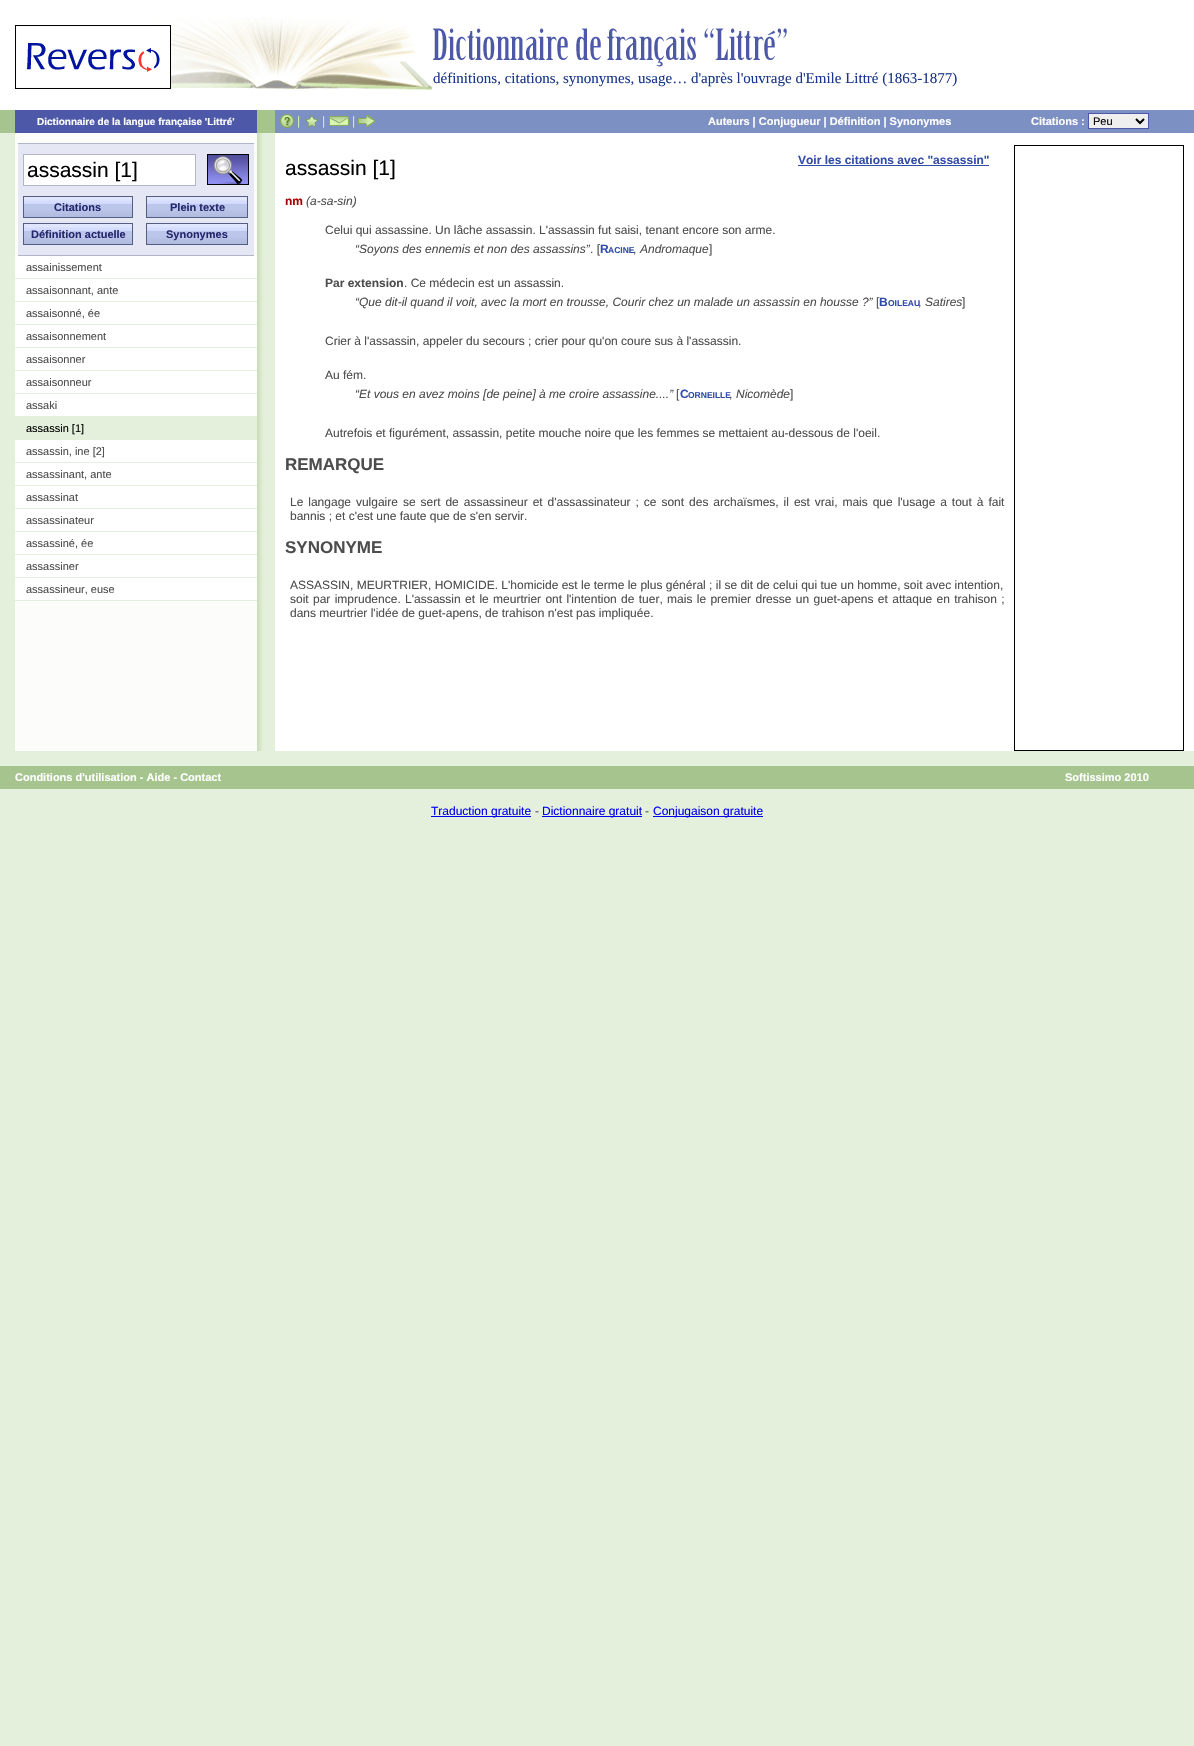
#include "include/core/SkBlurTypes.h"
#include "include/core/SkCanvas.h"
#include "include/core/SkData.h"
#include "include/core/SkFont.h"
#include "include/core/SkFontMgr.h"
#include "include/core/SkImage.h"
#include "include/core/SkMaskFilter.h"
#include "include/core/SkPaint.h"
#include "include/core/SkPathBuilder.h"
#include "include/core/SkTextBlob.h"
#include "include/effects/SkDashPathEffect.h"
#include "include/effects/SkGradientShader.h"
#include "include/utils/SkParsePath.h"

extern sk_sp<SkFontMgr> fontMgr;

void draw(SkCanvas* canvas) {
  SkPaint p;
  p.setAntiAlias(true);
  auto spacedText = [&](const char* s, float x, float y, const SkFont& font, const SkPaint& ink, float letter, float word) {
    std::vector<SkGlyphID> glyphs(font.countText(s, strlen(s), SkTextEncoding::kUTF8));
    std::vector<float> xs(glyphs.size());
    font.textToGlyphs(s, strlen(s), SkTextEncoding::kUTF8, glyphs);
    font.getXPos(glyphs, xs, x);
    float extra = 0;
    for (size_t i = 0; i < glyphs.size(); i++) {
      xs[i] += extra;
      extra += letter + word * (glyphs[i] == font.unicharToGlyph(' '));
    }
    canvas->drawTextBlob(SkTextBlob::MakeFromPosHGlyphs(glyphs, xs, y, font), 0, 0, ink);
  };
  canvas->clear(SkColorSetRGB(228, 240, 219));
  p.setColor(SK_ColorWHITE);
  canvas->drawRect(SkRect::MakeLTRB(0, 0, 1194, 110), p);
  canvas->drawImageRect(SkImages::DeferredFromEncodedData(SkData::MakeFromFileName("images/1.png")), SkRect::MakeLTRB(117, 17, 432, 90), SkSamplingOptions());
  canvas->drawImageRect(SkImages::DeferredFromEncodedData(SkData::MakeFromFileName("images/2.png")), SkRect::MakeLTRB(15, 25, 171, 89), SkSamplingOptions());
  canvas->drawImageRect(SkImages::DeferredFromEncodedData(SkData::MakeFromFileName("images/3.png")), SkRect::MakeLTRB(433, 28, 787, 67), SkSamplingOptions());
  p.setColor(SkColorSetRGB(166, 197, 142));
  canvas->drawRect(SkRect::MakeLTRB(0, 110, 275, 133), p);
  p.setColor(SkColorSetRGB(77, 89, 168));
  canvas->drawRect(SkRect::MakeLTRB(15, 110, 257, 133), p);
  p.setColor(SkColorSetRGB(125, 144, 195));
  canvas->drawRect(SkRect::MakeLTRB(275, 110, 1194, 133), p);
  canvas->drawImageRect(SkImages::DeferredFromEncodedData(SkData::MakeFromFileName("images/4.png")), SkRect::MakeLTRB(280, 114, 294, 128), SkSamplingOptions());
  canvas->drawImageRect(SkImages::DeferredFromEncodedData(SkData::MakeFromFileName("images/5.png")), SkRect::MakeLTRB(304, 114, 319, 128), SkSamplingOptions());
  canvas->drawImageRect(SkImages::DeferredFromEncodedData(SkData::MakeFromFileName("images/6.png")), SkRect::MakeLTRB(329, 116, 349, 126), SkSamplingOptions());
  canvas->drawImageRect(SkImages::DeferredFromEncodedData(SkData::MakeFromFileName("images/7.png")), SkRect::MakeLTRB(358, 115, 375, 127), SkSamplingOptions());
  p.setColor(SkColorSetRGB(239, 239, 239));
  canvas->drawRect(SkRect::MakeLTRB(1088.5f, 113.5f, 1148.5f, 128.5f), p);
  p.setStyle(SkPaint::kStroke_Style);
  p.setStrokeWidth(1);
  p.setColor(SkColorSetRGB(77, 89, 168));
  canvas->drawRect(SkRect::MakeLTRB(1088.5f, 113.5f, 1148.5f, 128.5f), p);
  p.setStrokeWidth(2);
  p.setColor(SK_ColorBLACK);
  canvas->drawPath(SkPathBuilder().moveTo(1136, 119).lineTo(1140, 123).lineTo(1144, 119).detach(), p);
  p.setStyle(SkPaint::kFill_Style);
  p.setColor(SK_ColorWHITE);
  canvas->drawRect(SkRect::MakeLTRB(275, 133, 1194, 751), p);
  canvas->drawImageRect(SkImages::DeferredFromEncodedData(SkData::MakeFromFileName("images/8.png")), SkRect::MakeLTRB(0, 133, 275, 751), SkSamplingOptions());
  p.setColor(SkColorSetRGB(229, 232, 244));
  canvas->drawRect(SkRect::MakeLTRB(18, 144, 254, 255), p);
  p.setColor(SkColorSetRGB(176, 181, 200));
  canvas->drawRect(SkRect::MakeLTRB(18, 143, 254, 144), p);
  canvas->drawRect(SkRect::MakeLTRB(18, 255, 254, 256), p);
  p.setColor(SK_ColorWHITE);
  canvas->drawRect(SkRect::MakeLTRB(23.5f, 154.5f, 195.5f, 185.5f), p);
  p.setStyle(SkPaint::kStroke_Style);
  p.setStrokeWidth(1);
  p.setColor(SkColorSetRGB(176, 181, 200));
  canvas->drawRect(SkRect::MakeLTRB(23.5f, 154.5f, 195.5f, 185.5f), p);
  canvas->drawImageRect(SkImages::DeferredFromEncodedData(SkData::MakeFromFileName("images/9.png")), SkRect::MakeLTRB(207, 154, 249, 185), SkSamplingOptions());
  canvas->drawImageRect(SkImages::DeferredFromEncodedData(SkData::MakeFromFileName("images/10.png")), SkRect::MakeLTRB(24, 197, 132, 217), SkSamplingOptions());
  p.setColor(SkColorSetRGB(84, 93, 130));
  canvas->drawRect(SkRect::MakeLTRB(23.5f, 196.5f, 132.5f, 217.5f), p);
  canvas->drawImageRect(SkImages::DeferredFromEncodedData(SkData::MakeFromFileName("images/11.png")), SkRect::MakeLTRB(147, 197, 247, 217), SkSamplingOptions());
  canvas->drawRect(SkRect::MakeLTRB(146.5f, 196.5f, 247.5f, 217.5f), p);
  canvas->drawImageRect(SkImages::DeferredFromEncodedData(SkData::MakeFromFileName("images/10.png")), SkRect::MakeLTRB(24, 224, 132, 244), SkSamplingOptions());
  canvas->drawRect(SkRect::MakeLTRB(23.5f, 223.5f, 132.5f, 244.5f), p);
  canvas->drawImageRect(SkImages::DeferredFromEncodedData(SkData::MakeFromFileName("images/11.png")), SkRect::MakeLTRB(147, 224, 247, 244), SkSamplingOptions());
  canvas->drawRect(SkRect::MakeLTRB(146.5f, 223.5f, 247.5f, 244.5f), p);
  p.setStyle(SkPaint::kFill_Style);
  p.setColor(SK_ColorWHITE);
  canvas->drawRect(SkRect::MakeLTRB(15, 256, 257, 278), p);
  p.setColor(SkColorSetRGB(228, 240, 219));
  canvas->drawRect(SkRect::MakeLTRB(15, 278, 257, 279), p);
  p.setColor(SK_ColorWHITE);
  canvas->drawRect(SkRect::MakeLTRB(15, 279, 257, 301), p);
  p.setColor(SkColorSetRGB(228, 240, 219));
  canvas->drawRect(SkRect::MakeLTRB(15, 301, 257, 302), p);
  p.setColor(SK_ColorWHITE);
  canvas->drawRect(SkRect::MakeLTRB(15, 302, 257, 324), p);
  p.setColor(SkColorSetRGB(228, 240, 219));
  canvas->drawRect(SkRect::MakeLTRB(15, 324, 257, 325), p);
  p.setColor(SK_ColorWHITE);
  canvas->drawRect(SkRect::MakeLTRB(15, 325, 257, 347), p);
  p.setColor(SkColorSetRGB(228, 240, 219));
  canvas->drawRect(SkRect::MakeLTRB(15, 347, 257, 348), p);
  p.setColor(SK_ColorWHITE);
  canvas->drawRect(SkRect::MakeLTRB(15, 348, 257, 370), p);
  p.setColor(SkColorSetRGB(228, 240, 219));
  canvas->drawRect(SkRect::MakeLTRB(15, 370, 257, 371), p);
  p.setColor(SK_ColorWHITE);
  canvas->drawRect(SkRect::MakeLTRB(15, 371, 257, 393), p);
  p.setColor(SkColorSetRGB(228, 240, 219));
  canvas->drawRect(SkRect::MakeLTRB(15, 393, 257, 394), p);
  p.setColor(SK_ColorWHITE);
  canvas->drawRect(SkRect::MakeLTRB(15, 394, 257, 416), p);
  p.setColor(SkColorSetRGB(228, 240, 219));
  canvas->drawRect(SkRect::MakeLTRB(15, 416, 257, 440), p);
  p.setColor(SK_ColorWHITE);
  canvas->drawRect(SkRect::MakeLTRB(15, 440, 257, 462), p);
  p.setColor(SkColorSetRGB(228, 240, 219));
  canvas->drawRect(SkRect::MakeLTRB(15, 462, 257, 463), p);
  p.setColor(SK_ColorWHITE);
  canvas->drawRect(SkRect::MakeLTRB(15, 463, 257, 485), p);
  p.setColor(SkColorSetRGB(228, 240, 219));
  canvas->drawRect(SkRect::MakeLTRB(15, 485, 257, 486), p);
  p.setColor(SK_ColorWHITE);
  canvas->drawRect(SkRect::MakeLTRB(15, 486, 257, 508), p);
  p.setColor(SkColorSetRGB(228, 240, 219));
  canvas->drawRect(SkRect::MakeLTRB(15, 508, 257, 509), p);
  p.setColor(SK_ColorWHITE);
  canvas->drawRect(SkRect::MakeLTRB(15, 509, 257, 531), p);
  p.setColor(SkColorSetRGB(228, 240, 219));
  canvas->drawRect(SkRect::MakeLTRB(15, 531, 257, 532), p);
  p.setColor(SK_ColorWHITE);
  canvas->drawRect(SkRect::MakeLTRB(15, 532, 257, 554), p);
  p.setColor(SkColorSetRGB(228, 240, 219));
  canvas->drawRect(SkRect::MakeLTRB(15, 554, 257, 555), p);
  p.setColor(SK_ColorWHITE);
  canvas->drawRect(SkRect::MakeLTRB(15, 555, 257, 577), p);
  p.setColor(SkColorSetRGB(228, 240, 219));
  canvas->drawRect(SkRect::MakeLTRB(15, 577, 257, 578), p);
  p.setColor(SK_ColorWHITE);
  canvas->drawRect(SkRect::MakeLTRB(15, 578, 257, 600), p);
  p.setColor(SkColorSetRGB(228, 240, 219));
  canvas->drawRect(SkRect::MakeLTRB(15, 600, 257, 601), p);
  p.setColor(SkColorSetRGB(50, 76, 169));
  canvas->drawRect(SkRect::MakeLTRB(798, 165, 989, 166), p);
  p.setStyle(SkPaint::kStroke_Style);
  p.setColor(SK_ColorBLACK);
  canvas->drawRect(SkRect::MakeLTRB(1014.5f, 145.5f, 1183.5f, 750.5f), p);
  p.setStyle(SkPaint::kFill_Style);
  p.setColor(SkColorSetRGB(166, 197, 142));
  canvas->drawRect(SkRect::MakeLTRB(0, 766, 1194, 789), p);
  p.setColor(SkColorSetRGB(0, 0, 238));
  canvas->drawRect(SkRect::MakeLTRB(431, 816, 531, 817), p);
  canvas->drawRect(SkRect::MakeLTRB(542, 816, 642, 817), p);
  canvas->drawRect(SkRect::MakeLTRB(653, 816, 763, 817), p);
  SkFont font1(fontMgr->matchFamilyStyle("Liberation Serif", SkFontStyle::Normal()), 15);
  font1.setSubpixel(true);
  p.setColor(SkColorSetRGB(24, 53, 137));
  canvas->drawString("définitions, citations, synonymes, usage… d'après l'ouvrage d'Emile Littré (1863-1877)", 433, 83, font1, p);
  SkFont font2(fontMgr->matchFamilyStyle("Liberation Sans", SkFontStyle::Bold()), 10);
  font2.setSubpixel(true);
  p.setColor(SK_ColorWHITE);
  canvas->drawString("Dictionnaire de la langue française 'Littré'", 37, 125, font2, p);
  SkFont font3(fontMgr->matchFamilyStyle("Liberation Sans", SkFontStyle::Normal()), 12);
  font3.setSubpixel(true);
  p.setColor(SkColorSetRGB(210, 239, 173));
  canvas->drawString("|", 297, 125, font3, p);
  canvas->drawString("|", 322, 125, font3, p);
  canvas->drawString("|", 352, 125, font3, p);
  SkFont font4(fontMgr->matchFamilyStyle("Liberation Sans", SkFontStyle::Bold()), 11);
  font4.setSubpixel(true);
  p.setColor(SK_ColorWHITE);
  canvas->drawString("Auteurs | Conjugueur | Définition | Synonymes", 708, 125, font4, p);
  canvas->drawString("Citations :", 1031, 125, font4, p);
  SkFont font5(fontMgr->matchFamilyStyle("Liberation Sans", SkFontStyle::Normal()), 11);
  font5.setSubpixel(true);
  p.setColor(SK_ColorBLACK);
  canvas->drawString("Peu", 1093, 125, font5, p);
  SkFont font6(fontMgr->matchFamilyStyle("Liberation Sans", SkFontStyle::Normal()), 21);
  font6.setSubpixel(true);
  canvas->drawString("assassin [1]", 27, 177, font6, p);
  p.setColor(SkColorSetRGB(35, 39, 108));
  canvas->drawString("Citations", 54, 211, font4, p);
  canvas->drawString("Plein texte", 170, 211, font4, p);
  canvas->drawString("Définition actuelle", 31, 238, font4, p);
  canvas->drawString("Synonymes", 166, 238, font4, p);
  p.setColor(SkColorSetRGB(77, 77, 77));
  canvas->drawString("assainissement", 26, 271, font5, p);
  canvas->drawString("assaisonnant, ante", 26, 294, font5, p);
  canvas->drawString("assaisonné, ée", 26, 317, font5, p);
  canvas->drawString("assaisonnement", 26, 340, font5, p);
  canvas->drawString("assaisonner", 26, 363, font5, p);
  canvas->drawString("assaisonneur", 26, 386, font5, p);
  canvas->drawString("assaki", 26, 409, font5, p);
  p.setColor(SK_ColorBLACK);
  canvas->drawString("assassin [1]", 26, 432, font5, p);
  p.setColor(SkColorSetRGB(77, 77, 77));
  canvas->drawString("assassin, ine [2]", 26, 455, font5, p);
  canvas->drawString("assassinant, ante", 26, 478, font5, p);
  canvas->drawString("assassinat", 26, 501, font5, p);
  canvas->drawString("assassinateur", 26, 524, font5, p);
  canvas->drawString("assassiné, ée", 26, 547, font5, p);
  canvas->drawString("assassiner", 26, 570, font5, p);
  canvas->drawString("assassineur, euse", 26, 593, font5, p);
  SkFont font7(fontMgr->matchFamilyStyle("Liberation Sans", SkFontStyle::Bold()), 12);
  font7.setSubpixel(true);
  p.setColor(SkColorSetRGB(50, 76, 169));
  canvas->drawString("Voir les citations avec \"assassin\"", 798, 164, font7, p);
  p.setColor(SK_ColorBLACK);
  canvas->drawString("assassin [1]", 285, 175, font6, p);
  p.setColor(SkColorSetRGB(163, 0, 0));
  canvas->drawString("nm", 285, 205, font7, p);
  SkFont font8(fontMgr->matchFamilyStyle("Liberation Sans", SkFontStyle::Italic()), 12);
  font8.setSubpixel(true);
  p.setColor(SkColorSetRGB(77, 77, 77));
  canvas->drawString("(a-sa-sin)", 306, 205, font8, p);
  canvas->drawString("Celui qui assassine. Un lâche assassin. L'assassin fut saisi, tenant encore son arme.", 325, 234, font3, p);
  canvas->drawString("“Soyons des ennemis et non des assassins”", 355, 253, font8, p);
  canvas->drawString(". [", 590, 253, font3, p);
  p.setColor(SkColorSetRGB(50, 76, 169));
  canvas->drawString("R", 600, 253, font7, p);
  SkFont font9(fontMgr->matchFamilyStyle("Liberation Sans", SkFontStyle::Bold()), 8.5f);
  font9.setSubpixel(true);
  canvas->drawString("ACINE", 608, 253, font9, p);
  p.setColor(SkColorSetRGB(77, 77, 77));
  canvas->drawString("Andromaque", 640, 253, font8, p);
  canvas->drawString("]", 709, 253, font3, p);
  canvas->drawString(",", 633, 253, font3, p);
  canvas->drawString("Par extension", 325, 287, font7, p);
  canvas->drawString(". Ce médecin est un assassin.", 404, 287, font3, p);
  canvas->drawString("“Que dit-il quand il voit, avec la mort en trousse, Courir chez un malade un assassin en housse ?”", 355, 306, font8, p);
  canvas->drawString("[", 876, 306, font3, p);
  p.setColor(SkColorSetRGB(50, 76, 169));
  canvas->drawString("B", 879, 306, font7, p);
  canvas->drawString("OILEAU", 888, 306, font9, p);
  p.setColor(SkColorSetRGB(77, 77, 77));
  canvas->drawString("Satires", 925, 306, font8, p);
  canvas->drawString("]", 962, 306, font3, p);
  canvas->drawString(",", 918, 306, font3, p);
  canvas->drawString("Crier à l'assassin, appeler du secours ; crier pour qu'on coure sus à l'assassin.", 325, 345, font3, p);
  canvas->drawString("Au fém.", 325, 379, font3, p);
  canvas->drawString("“Et vous en avez moins [de peine] à me croire assassine....”", 355, 398, font8, p);
  canvas->drawString("[", 676, 398, font3, p);
  p.setColor(SkColorSetRGB(50, 76, 169));
  canvas->drawString("C", 680, 398, font7, p);
  canvas->drawString("ORNEILLE", 688, 398, font9, p);
  p.setColor(SkColorSetRGB(77, 77, 77));
  canvas->drawString("Nicomède", 736, 398, font8, p);
  canvas->drawString("]", 790, 398, font3, p);
  canvas->drawString(",", 729, 398, font3, p);
  canvas->drawString("Autrefois et figurément, assassin, petite mouche noire que les femmes se mettaient au-dessous de l'oeil.", 325, 437, font3, p);
  SkFont font10(fontMgr->matchFamilyStyle("Liberation Sans", SkFontStyle::Bold()), 17);
  font10.setSubpixel(true);
  canvas->drawString("REMARQUE", 285, 470, font10, p);
  spacedText("Le langage vulgaire se sert de assassineur et d'assassinateur ; ce sont des archaïsmes, il est vrai, mais que l'usage a tout à fait", 290, 506, font3, p, 0, 1.6f);
  canvas->drawString("bannis ; et c'est une faute que de s'en servir.", 290, 520, font3, p);
  canvas->drawString("SYNONYME", 285, 553, font10, p);
  canvas->drawString("ASSASSIN, MEURTRIER, HOMICIDE. L'homicide est le terme le plus général ; il se dit de celui qui tue un homme, soit avec intention,", 290, 589, font3, p);
  spacedText("soit par imprudence. L'assassin et le meurtrier ont l'intention de tuer, mais le premier dresse un guet-apens et attaque en trahison ;", 290, 603, font3, p, 0, 1);
  canvas->drawString("dans meurtrier l'idée de guet-apens, de trahison n'est pas impliquée.", 290, 617, font3, p);
  p.setColor(SK_ColorWHITE);
  canvas->drawString("Conditions d'utilisation - Aide - Contact", 15, 781, font4, p);
  canvas->drawString("Softissimo 2010", 1065, 781, font4, p);
  p.setColor(SkColorSetRGB(0, 0, 238));
  canvas->drawString("Traduction gratuite", 431, 815, font3, p);
  p.setColor(SkColorSetRGB(77, 77, 77));
  canvas->drawString("-", 535, 815, font3, p);
  p.setColor(SkColorSetRGB(0, 0, 238));
  canvas->drawString("Dictionnaire gratuit", 542, 815, font3, p);
  p.setColor(SkColorSetRGB(77, 77, 77));
  canvas->drawString("-", 645, 815, font3, p);
  p.setColor(SkColorSetRGB(0, 0, 238));
  canvas->drawString("Conjugaison gratuite", 653, 815, font3, p);
}
